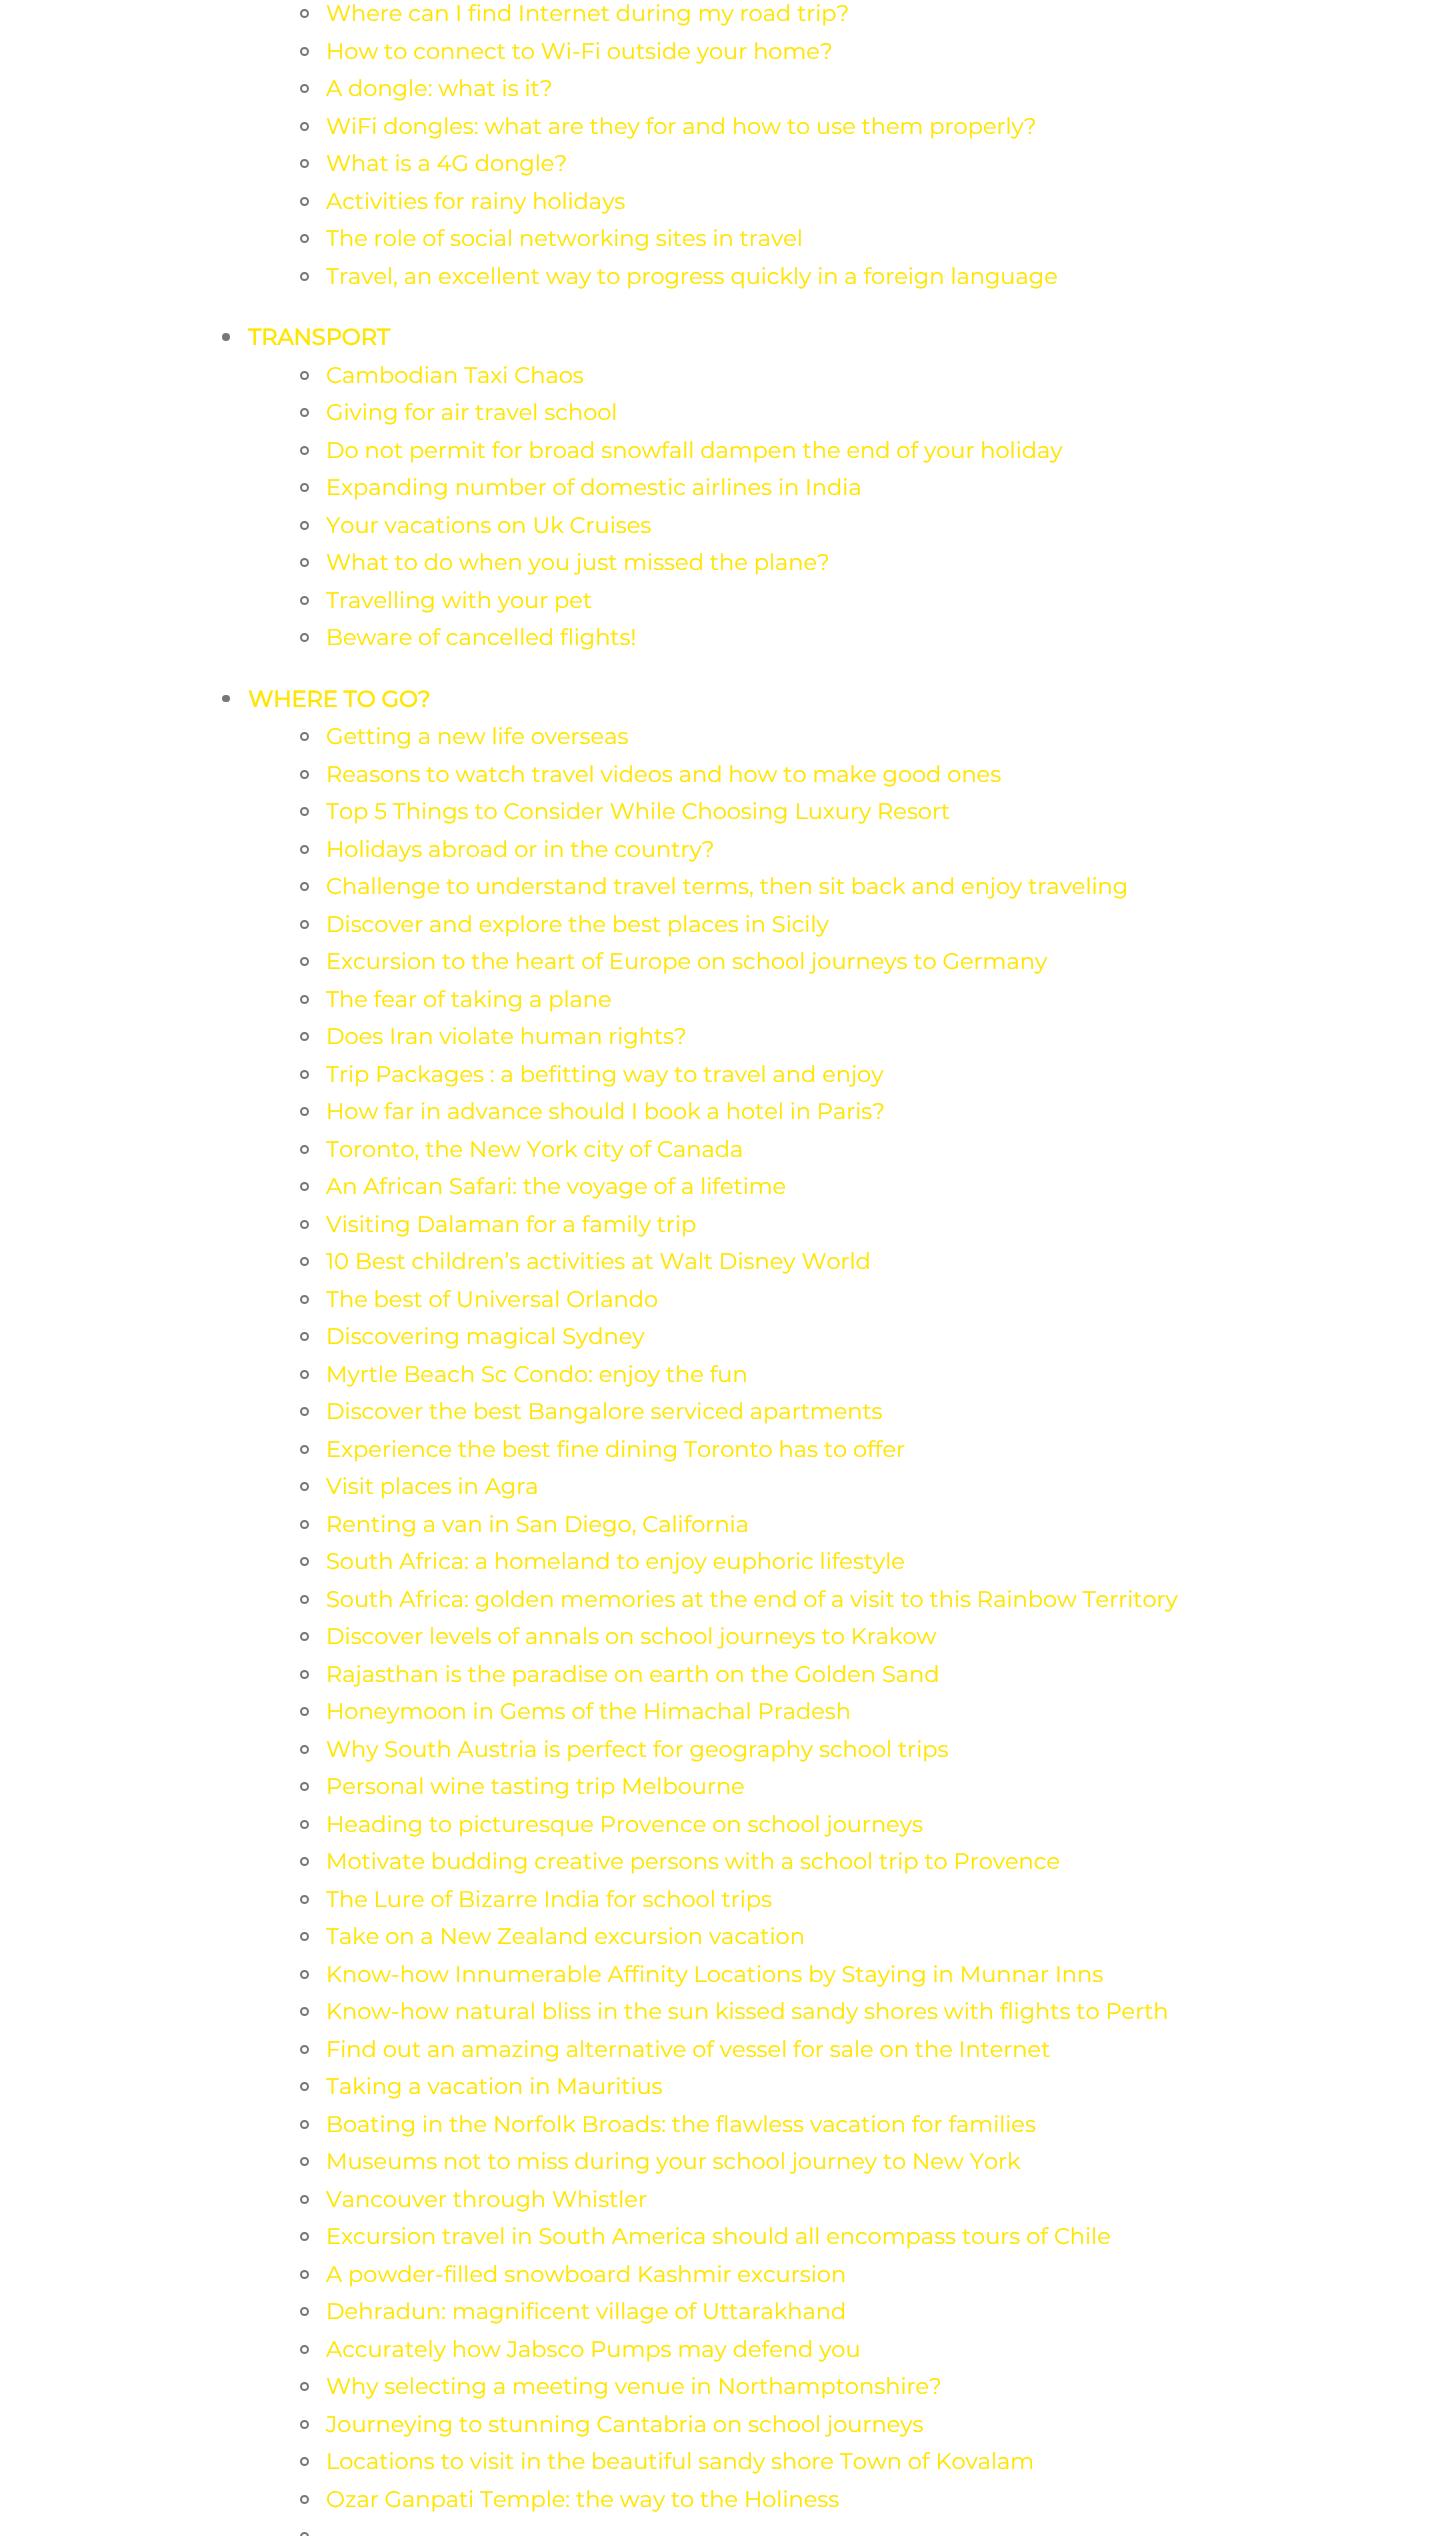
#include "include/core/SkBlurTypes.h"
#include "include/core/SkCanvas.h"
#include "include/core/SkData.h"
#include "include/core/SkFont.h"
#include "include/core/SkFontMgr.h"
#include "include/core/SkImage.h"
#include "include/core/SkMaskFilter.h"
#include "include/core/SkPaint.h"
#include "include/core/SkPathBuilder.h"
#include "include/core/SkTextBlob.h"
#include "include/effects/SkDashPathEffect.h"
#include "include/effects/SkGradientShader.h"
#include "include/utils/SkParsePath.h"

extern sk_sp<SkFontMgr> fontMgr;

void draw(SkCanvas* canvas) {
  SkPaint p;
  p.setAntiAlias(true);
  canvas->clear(SK_ColorWHITE);
  p.setStyle(SkPaint::kStroke_Style);
  p.setStrokeWidth(2);
  p.setColor(SkColorSetRGB(119, 119, 119));
  canvas->drawCircle(304.5f, 13.5f, 3.5f, p);
  canvas->drawCircle(304.5f, 51.5f, 3.5f, p);
  canvas->drawCircle(304.5f, 88.5f, 3.5f, p);
  canvas->drawCircle(304.5f, 126.5f, 3.5f, p);
  canvas->drawCircle(304.5f, 163.5f, 3.5f, p);
  canvas->drawCircle(304.5f, 201.5f, 3.5f, p);
  canvas->drawCircle(304.5f, 238.5f, 3.5f, p);
  canvas->drawCircle(304.5f, 276.5f, 3.5f, p);
  p.setStyle(SkPaint::kFill_Style);
  canvas->drawCircle(226, 337, 4, p);
  p.setStyle(SkPaint::kStroke_Style);
  canvas->drawCircle(304.5f, 375.5f, 3.5f, p);
  canvas->drawCircle(304.5f, 412.5f, 3.5f, p);
  canvas->drawCircle(304.5f, 450.5f, 3.5f, p);
  canvas->drawCircle(304.5f, 487.5f, 3.5f, p);
  canvas->drawCircle(304.5f, 525.5f, 3.5f, p);
  canvas->drawCircle(304.5f, 562.5f, 3.5f, p);
  canvas->drawCircle(304.5f, 600.5f, 3.5f, p);
  canvas->drawCircle(304.5f, 637.5f, 3.5f, p);
  p.setStyle(SkPaint::kFill_Style);
  canvas->drawRoundRect(SkRect::MakeLTRB(222, 695, 230, 702), 3.5f, 3.5f, p);
  p.setStyle(SkPaint::kStroke_Style);
  canvas->drawCircle(304.5f, 736.5f, 3.5f, p);
  canvas->drawCircle(304.5f, 774.5f, 3.5f, p);
  canvas->drawCircle(304.5f, 811.5f, 3.5f, p);
  canvas->drawCircle(304.5f, 849.5f, 3.5f, p);
  canvas->drawCircle(304.5f, 886.5f, 3.5f, p);
  canvas->drawCircle(304.5f, 924.5f, 3.5f, p);
  canvas->drawCircle(304.5f, 961.5f, 3.5f, p);
  canvas->drawCircle(304.5f, 999.5f, 3.5f, p);
  canvas->drawCircle(304.5f, 1036.5f, 3.5f, p);
  canvas->drawCircle(304.5f, 1074.5f, 3.5f, p);
  canvas->drawCircle(304.5f, 1111.5f, 3.5f, p);
  canvas->drawCircle(304.5f, 1149.5f, 3.5f, p);
  canvas->drawCircle(304.5f, 1186.5f, 3.5f, p);
  canvas->drawCircle(304.5f, 1224.5f, 3.5f, p);
  canvas->drawCircle(304.5f, 1261.5f, 3.5f, p);
  canvas->drawCircle(304.5f, 1299.5f, 3.5f, p);
  canvas->drawCircle(304.5f, 1336.5f, 3.5f, p);
  canvas->drawCircle(304.5f, 1374.5f, 3.5f, p);
  canvas->drawCircle(304.5f, 1411.5f, 3.5f, p);
  canvas->drawCircle(304.5f, 1449.5f, 3.5f, p);
  canvas->drawCircle(304.5f, 1486.5f, 3.5f, p);
  canvas->drawCircle(304.5f, 1524.5f, 3.5f, p);
  canvas->drawCircle(304.5f, 1561.5f, 3.5f, p);
  canvas->drawCircle(304.5f, 1599.5f, 3.5f, p);
  canvas->drawCircle(304.5f, 1636.5f, 3.5f, p);
  canvas->drawCircle(304.5f, 1674.5f, 3.5f, p);
  canvas->drawCircle(304.5f, 1711.5f, 3.5f, p);
  canvas->drawCircle(304.5f, 1749.5f, 3.5f, p);
  canvas->drawCircle(304.5f, 1786.5f, 3.5f, p);
  canvas->drawCircle(304.5f, 1824.5f, 3.5f, p);
  canvas->drawCircle(304.5f, 1861.5f, 3.5f, p);
  canvas->drawCircle(304.5f, 1899.5f, 3.5f, p);
  canvas->drawCircle(304.5f, 1936.5f, 3.5f, p);
  canvas->drawCircle(304.5f, 1974.5f, 3.5f, p);
  canvas->drawCircle(304.5f, 2011.5f, 3.5f, p);
  canvas->drawCircle(304.5f, 2049.5f, 3.5f, p);
  canvas->drawCircle(304.5f, 2086.5f, 3.5f, p);
  canvas->drawCircle(304.5f, 2124.5f, 3.5f, p);
  canvas->drawCircle(304.5f, 2161.5f, 3.5f, p);
  canvas->drawCircle(304.5f, 2199.5f, 3.5f, p);
  canvas->drawCircle(304.5f, 2236.5f, 3.5f, p);
  canvas->drawCircle(304.5f, 2274.5f, 3.5f, p);
  canvas->drawCircle(304.5f, 2311.5f, 3.5f, p);
  canvas->drawCircle(304.5f, 2349.5f, 3.5f, p);
  canvas->drawCircle(304.5f, 2386.5f, 3.5f, p);
  canvas->drawCircle(304.5f, 2424.5f, 3.5f, p);
  canvas->drawCircle(304.5f, 2461.5f, 3.5f, p);
  canvas->drawCircle(304.5f, 2499.5f, 3.5f, p);
  canvas->drawCircle(304.5f, 2536.5f, 3.5f, p);
  SkFont font1(fontMgr->matchFamilyStyle("Montserrat", SkFontStyle(100, SkFontStyle::kNormal_Width, SkFontStyle::kUpright_Slant)), 22.5f);
  font1.setSubpixel(true);
  p.setStyle(SkPaint::kFill_Style);
  p.setColor(SkColorSetRGB(255, 229, 0));
  canvas->drawString("Where can I find Internet during my road trip?", 326, 21, font1, p);
  canvas->drawString("How to connect to Wi-Fi outside your home?", 326, 59, font1, p);
  canvas->drawString("A dongle: what is it?", 326, 96, font1, p);
  canvas->drawString("WiFi dongles: what are they for and how to use them properly?", 326, 134, font1, p);
  canvas->drawString("What is a 4G dongle?", 326, 171, font1, p);
  canvas->drawString("Activities for rainy holidays", 326, 209, font1, p);
  canvas->drawString("The role of social networking sites in travel", 326, 246, font1, p);
  canvas->drawString("Travel, an excellent way to progress quickly in a foreign language", 326, 284, font1, p);
  SkFont font2(fontMgr->matchFamilyStyle("Montserrat", SkFontStyle::Bold()), 22.5f);
  font2.setSubpixel(true);
  canvas->drawString("TRANSPORT", 248, 345, font2, p);
  canvas->drawString("Cambodian Taxi Chaos", 326, 383, font1, p);
  canvas->drawString("Giving for air travel school", 326, 420, font1, p);
  canvas->drawString("Do not permit for broad snowfall dampen the end of your holiday", 326, 458, font1, p);
  canvas->drawString("Expanding number of domestic airlines in India", 326, 495, font1, p);
  canvas->drawString("Your vacations on Uk Cruises", 326, 533, font1, p);
  canvas->drawString("What to do when you just missed the plane?", 326, 570, font1, p);
  canvas->drawString("Travelling with your pet", 326, 608, font1, p);
  canvas->drawString("Beware of cancelled flights!", 326, 645, font1, p);
  canvas->drawString("WHERE TO GO?", 248, 707, font2, p);
  canvas->drawString("Getting a new life overseas", 326, 744, font1, p);
  canvas->drawString("Reasons to watch travel videos and how to make good ones", 326, 782, font1, p);
  canvas->drawString("Top 5 Things to Consider While Choosing Luxury Resort", 326, 819, font1, p);
  canvas->drawString("Holidays abroad or in the country?", 326, 857, font1, p);
  canvas->drawString("Challenge to understand travel terms, then sit back and enjoy traveling", 326, 894, font1, p);
  canvas->drawString("Discover and explore the best places in Sicily", 326, 932, font1, p);
  canvas->drawString("Excursion to the heart of Europe on school journeys to Germany", 326, 969, font1, p);
  canvas->drawString("The fear of taking a plane", 326, 1007, font1, p);
  canvas->drawString("Does Iran violate human rights?", 326, 1044, font1, p);
  canvas->drawString("Trip Packages : a befitting way to travel and enjoy", 326, 1082, font1, p);
  canvas->drawString("How far in advance should I book a hotel in Paris?", 326, 1119, font1, p);
  canvas->drawString("Toronto, the New York city of Canada", 326, 1157, font1, p);
  canvas->drawString("An African Safari: the voyage of a lifetime", 326, 1194, font1, p);
  canvas->drawString("Visiting Dalaman for a family trip", 326, 1232, font1, p);
  canvas->drawString("10 Best children’s activities at Walt Disney World", 326, 1269, font1, p);
  canvas->drawString("The best of Universal Orlando", 326, 1307, font1, p);
  canvas->drawString("Discovering magical Sydney", 326, 1344, font1, p);
  canvas->drawString("Myrtle Beach Sc Condo: enjoy the fun", 326, 1382, font1, p);
  canvas->drawString("Discover the best Bangalore serviced apartments", 326, 1419, font1, p);
  canvas->drawString("Experience the best fine dining Toronto has to offer", 326, 1457, font1, p);
  canvas->drawString("Visit places in Agra", 326, 1494, font1, p);
  canvas->drawString("Renting a van in San Diego, California", 326, 1532, font1, p);
  canvas->drawString("South Africa: a homeland to enjoy euphoric lifestyle", 326, 1569, font1, p);
  canvas->drawString("South Africa: golden memories at the end of a visit to this Rainbow Territory", 326, 1607, font1, p);
  canvas->drawString("Discover levels of annals on school journeys to Krakow", 326, 1644, font1, p);
  canvas->drawString("Rajasthan is the paradise on earth on the Golden Sand", 326, 1682, font1, p);
  canvas->drawString("Honeymoon in Gems of the Himachal Pradesh", 326, 1719, font1, p);
  canvas->drawString("Why South Austria is perfect for geography school trips", 326, 1757, font1, p);
  canvas->drawString("Personal wine tasting trip Melbourne", 326, 1794, font1, p);
  canvas->drawString("Heading to picturesque Provence on school journeys", 326, 1832, font1, p);
  canvas->drawString("Motivate budding creative persons with a school trip to Provence", 326, 1869, font1, p);
  canvas->drawString("The Lure of Bizarre India for school trips", 326, 1907, font1, p);
  canvas->drawString("Take on a New Zealand excursion vacation", 326, 1944, font1, p);
  canvas->drawString("Know-how Innumerable Affinity Locations by Staying in Munnar Inns", 326, 1982, font1, p);
  canvas->drawString("Know-how natural bliss in the sun kissed sandy shores with flights to Perth", 326, 2019, font1, p);
  canvas->drawString("Find out an amazing alternative of vessel for sale on the Internet", 326, 2057, font1, p);
  canvas->drawString("Taking a vacation in Mauritius", 326, 2094, font1, p);
  canvas->drawString("Boating in the Norfolk Broads: the flawless vacation for families", 326, 2132, font1, p);
  canvas->drawString("Museums not to miss during your school journey to New York", 326, 2169, font1, p);
  canvas->drawString("Vancouver through Whistler", 326, 2207, font1, p);
  canvas->drawString("Excursion travel in South America should all encompass tours of Chile", 326, 2244, font1, p);
  canvas->drawString("A powder-filled snowboard Kashmir excursion", 326, 2282, font1, p);
  canvas->drawString("Dehradun: magnificent village of Uttarakhand", 326, 2319, font1, p);
  canvas->drawString("Accurately how Jabsco Pumps may defend you", 326, 2357, font1, p);
  canvas->drawString("Why selecting a meeting venue in Northamptonshire?", 326, 2394, font1, p);
  canvas->drawString("Journeying to stunning Cantabria on school journeys", 326, 2432, font1, p);
  canvas->drawString("Locations to visit in the beautiful sandy shore Town of Kovalam", 326, 2469, font1, p);
  canvas->drawString("Ozar Ganpati Temple: the way to the Holiness", 326, 2507, font1, p);
}
